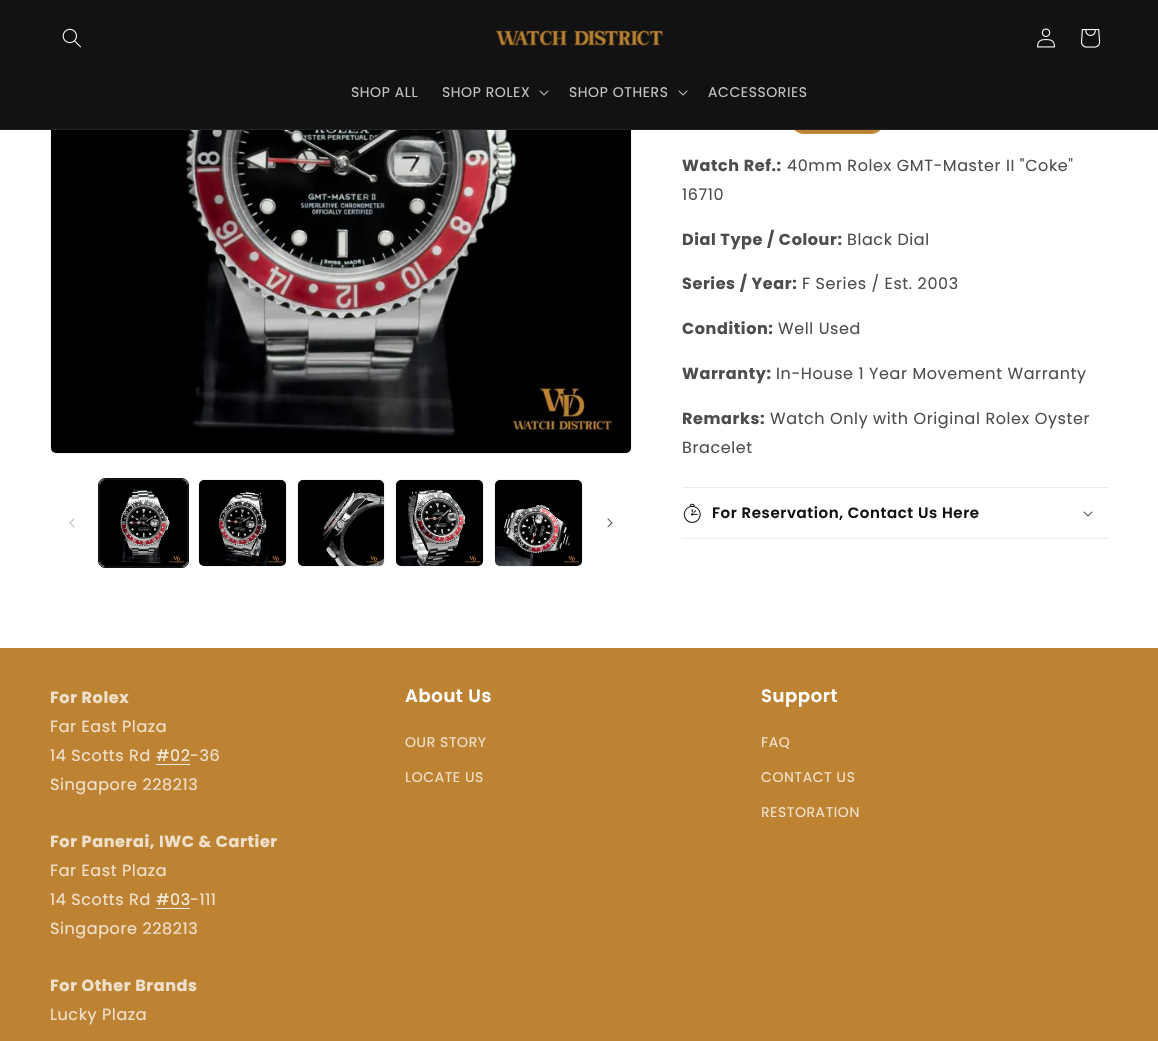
#include "include/core/SkBlurTypes.h"
#include "include/core/SkCanvas.h"
#include "include/core/SkData.h"
#include "include/core/SkFont.h"
#include "include/core/SkFontMgr.h"
#include "include/core/SkImage.h"
#include "include/core/SkMaskFilter.h"
#include "include/core/SkPaint.h"
#include "include/core/SkPathBuilder.h"
#include "include/core/SkTextBlob.h"
#include "include/effects/SkDashPathEffect.h"
#include "include/effects/SkGradientShader.h"
#include "include/utils/SkParsePath.h"

extern sk_sp<SkFontMgr> fontMgr;

void draw(SkCanvas* canvas) {
  SkPaint p;
  p.setAntiAlias(true);
  auto spacedText = [&](const char* s, float x, float y, const SkFont& font, const SkPaint& ink, float letter, float word) {
    std::vector<SkGlyphID> glyphs(font.countText(s, strlen(s), SkTextEncoding::kUTF8));
    std::vector<float> xs(glyphs.size());
    font.textToGlyphs(s, strlen(s), SkTextEncoding::kUTF8, glyphs);
    font.getXPos(glyphs, xs, x);
    float extra = 0;
    for (size_t i = 0; i < glyphs.size(); i++) {
      xs[i] += extra;
      extra += letter + word * (glyphs[i] == font.unicharToGlyph(' '));
    }
    canvas->drawTextBlob(SkTextBlob::MakeFromPosHGlyphs(glyphs, xs, y, font), 0, 0, ink);
  };
  canvas->clear(SK_ColorWHITE);
  p.setStyle(SkPaint::kStroke_Style);
  p.setStrokeWidth(1);
  p.setColor(SkColorSetRGB(243, 243, 243));
  canvas->drawRoundRect(SkRect::MakeLTRB(50.5f, -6.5f, 631.5f, 453.5f), 5.5f, 5.5f, p);
  p.setStyle(SkPaint::kFill_Style);
  p.setColor(SkColorSetRGB(189, 131, 50));
  canvas->drawRoundRect(SkRect::MakeLTRB(791, 109, 884, 134), 12.5f, 12.5f, p);
  p.setStyle(SkPaint::kStroke_Style);
  p.setColor(SkColorSetARGB(26, 255, 255, 255));
  canvas->drawRoundRect(SkRect::MakeLTRB(791.5f, 109.5f, 883.5f, 133.5f), 12, 12, p);
  p.setStyle(SkPaint::kFill_Style);
  p.setColor(SkColorSetRGB(18, 18, 18));
  canvas->drawRect(SkRect::MakeLTRB(0, 0, 1158, 129), p);
  p.setColor(SkColorSetRGB(37, 37, 37));
  canvas->drawRect(SkRect::MakeLTRB(0, 129, 1158, 130), p);
  canvas->drawImageRect(SkImages::DeferredFromEncodedData(SkData::MakeFromFileName("images/1.png")), SkRect::MakeLTRB(62, 28, 81, 48), SkSamplingOptions());
  canvas->drawImageRect(SkImages::DeferredFromEncodedData(SkData::MakeFromFileName("images/2.png")), SkRect::MakeLTRB(495, 30, 664, 46), SkSamplingOptions());
  canvas->drawImageRect(SkImages::DeferredFromEncodedData(SkData::MakeFromFileName("images/3.png")), SkRect::MakeLTRB(1037, 28, 1055, 48), SkSamplingOptions());
  canvas->drawImageRect(SkImages::DeferredFromEncodedData(SkData::MakeFromFileName("images/4.png")), SkRect::MakeLTRB(1081, 29, 1101, 48), SkSamplingOptions());
  canvas->drawImageRect(SkImages::DeferredFromEncodedData(SkData::MakeFromFileName("images/5.png")), SkRect::MakeLTRB(539, 90, 549, 96), SkSamplingOptions());
  canvas->drawImageRect(SkImages::DeferredFromEncodedData(SkData::MakeFromFileName("images/5.png")), SkRect::MakeLTRB(678, 90, 688, 96), SkSamplingOptions());
  canvas->drawImageRect(SkImages::DeferredFromEncodedData(SkData::MakeFromFileName("images/6.png")), SkRect::MakeLTRB(51, 130, 631, 453), SkSamplingOptions());
  canvas->drawImageRect(SkImages::DeferredFromEncodedData(SkData::MakeFromFileName("images/7.png")), SkRect::MakeLTRB(69, 518, 75, 528), SkSamplingOptions());
  p.setStyle(SkPaint::kStroke_Style);
  p.setColor(SkColorSetRGB(18, 18, 18));
  canvas->drawRoundRect(SkRect::MakeLTRB(98.5f, 478.5f, 188.5f, 567.5f), 6.5f, 6.5f, p);
  canvas->drawRoundRect(SkRect::MakeLTRB(99.5f, 479.5f, 187.5f, 566.5f), 5.5f, 5.5f, p);
  canvas->drawImageRect(SkImages::DeferredFromEncodedData(SkData::MakeFromFileName("images/8.png")), SkRect::MakeLTRB(100, 480, 187, 566), SkSamplingOptions());
  p.setColor(SkColorSetRGB(243, 243, 243));
  canvas->drawRoundRect(SkRect::MakeLTRB(198.5f, 479.5f, 286.5f, 566.5f), 5.5f, 5.5f, p);
  canvas->drawImageRect(SkImages::DeferredFromEncodedData(SkData::MakeFromFileName("images/9.png")), SkRect::MakeLTRB(199, 480, 286, 566), SkSamplingOptions());
  canvas->drawRoundRect(SkRect::MakeLTRB(297.5f, 479.5f, 384.5f, 566.5f), 5.5f, 5.5f, p);
  canvas->drawImageRect(SkImages::DeferredFromEncodedData(SkData::MakeFromFileName("images/10.png")), SkRect::MakeLTRB(298, 480, 384, 566), SkSamplingOptions());
  canvas->drawRoundRect(SkRect::MakeLTRB(395.5f, 479.5f, 483.5f, 566.5f), 5.5f, 5.5f, p);
  canvas->drawImageRect(SkImages::DeferredFromEncodedData(SkData::MakeFromFileName("images/11.png")), SkRect::MakeLTRB(396, 480, 483, 566), SkSamplingOptions());
  canvas->drawRoundRect(SkRect::MakeLTRB(494.5f, 479.5f, 582.5f, 566.5f), 5.5f, 5.5f, p);
  canvas->drawImageRect(SkImages::DeferredFromEncodedData(SkData::MakeFromFileName("images/12.png")), SkRect::MakeLTRB(495, 480, 582, 566), SkSamplingOptions());
  canvas->drawImageRect(SkImages::DeferredFromEncodedData(SkData::MakeFromFileName("images/13.png")), SkRect::MakeLTRB(607, 518, 613, 528), SkSamplingOptions());
  p.setStyle(SkPaint::kFill_Style);
  p.setColor(SkColorSetRGB(236, 236, 236));
  canvas->drawRect(SkRect::MakeLTRB(682, 487, 1108, 488), p);
  canvas->drawRect(SkRect::MakeLTRB(682, 538, 1108, 539), p);
  canvas->drawImageRect(SkImages::DeferredFromEncodedData(SkData::MakeFromFileName("images/14.png")), SkRect::MakeLTRB(683, 503, 701, 523), SkSamplingOptions());
  canvas->drawImageRect(SkImages::DeferredFromEncodedData(SkData::MakeFromFileName("images/15.png")), SkRect::MakeLTRB(1083, 511, 1093, 517), SkSamplingOptions());
  p.setColor(SkColorSetRGB(189, 131, 50));
  canvas->drawRect(SkRect::MakeLTRB(0, 648, 1158, 1041), p);
  p.setColor(SkColorSetRGB(245, 236, 224));
  canvas->drawRect(SkRect::MakeLTRB(156, 764, 190, 765), p);
  canvas->drawRect(SkRect::MakeLTRB(156, 908, 190, 909), p);
  SkFont font1(fontMgr->matchFamilyStyle("Poppins", SkFontStyle::Normal()), 14);
  font1.setSubpixel(true);
  p.setColor(SkColorSetRGB(196, 196, 196));
  spacedText("SHOP ALL", 351, 97, font1, p, 0.6f, 0);
  spacedText("SHOP ROLEX", 442, 97, font1, p, 0.6f, 0);
  spacedText("SHOP OTHERS", 569, 97, font1, p, 0.6f, 0);
  spacedText("ACCESSORIES", 708, 97, font1, p, 0.6f, 0);
  SkFont font2(fontMgr->matchFamilyStyle("Poppins", SkFontStyle::Bold()), 16);
  font2.setSubpixel(true);
  p.setColor(SkColorSetRGB(77, 77, 77));
  spacedText("Watch Ref.:", 682, 171, font2, p, 0.6f, 0);
  SkFont font3(fontMgr->matchFamilyStyle("Poppins", SkFontStyle::Normal()), 16);
  font3.setSubpixel(true);
  spacedText("40mm Rolex GMT-Master II \"Coke\"", 787, 171, font3, p, 0.6f, 0);
  spacedText("16710", 682, 200, font3, p, 0.6f, 0);
  spacedText("Dial Type / Colour:", 682, 245, font2, p, 0.6f, 0);
  spacedText("Black Dial", 847, 245, font3, p, 0.6f, 0);
  spacedText("Series / Year:", 682, 289, font2, p, 0.6f, 0);
  spacedText("F Series / Est. 2003", 802, 289, font3, p, 0.6f, 0);
  spacedText("Condition:", 682, 334, font2, p, 0.6f, 0);
  spacedText("Well Used", 778, 334, font3, p, 0.6f, 0);
  spacedText("Warranty:", 682, 379, font2, p, 0.6f, 0);
  spacedText("In-House 1 Year Movement Warranty", 776, 379, font3, p, 0.6f, 0);
  spacedText("Remarks:", 682, 424, font2, p, 0.6f, 0);
  spacedText("Watch Only with Original Rolex Oyster", 770, 424, font3, p, 0.6f, 0);
  spacedText("Bracelet", 682, 453, font3, p, 0.6f, 0);
  SkFont font4(fontMgr->matchFamilyStyle("Poppins", SkFontStyle(600, SkFontStyle::kNormal_Width, SkFontStyle::kUpright_Slant)), 15);
  font4.setSubpixel(true);
  p.setColor(SkColorSetRGB(18, 18, 18));
  spacedText("For Reservation, Contact Us Here", 712, 518, font4, p, 0.6f, 0);
  p.setColor(SkColorSetRGB(239, 224, 204));
  spacedText("For Rolex", 50, 703, font2, p, 0.6f, 0);
  spacedText("Far East Plaza", 50, 732, font3, p, 0.6f, 0);
  spacedText("14 Scotts Rd", 50, 761, font3, p, 0.6f, 0);
  p.setColor(SkColorSetRGB(245, 236, 224));
  spacedText("#02", 156, 761, font3, p, 0.6f, 0);
  p.setColor(SkColorSetRGB(239, 224, 204));
  spacedText("-36", 190, 761, font3, p, 0.6f, 0);
  spacedText("Singapore 228213", 50, 790, font3, p, 0.6f, 0);
  spacedText("For Panerai, IWC & Cartier", 50, 847, font2, p, 0.6f, 0);
  spacedText("Far East Plaza", 50, 876, font3, p, 0.6f, 0);
  spacedText("14 Scotts Rd", 50, 905, font3, p, 0.6f, 0);
  p.setColor(SkColorSetRGB(245, 236, 224));
  spacedText("#03", 156, 905, font3, p, 0.6f, 0);
  p.setColor(SkColorSetRGB(239, 224, 204));
  spacedText("-111", 190, 905, font3, p, 0.6f, 0);
  spacedText("Singapore 228213", 50, 934, font3, p, 0.6f, 0);
  spacedText("For Other Brands", 50, 991, font2, p, 0.6f, 0);
  spacedText("Lucky Plaza", 50, 1020, font3, p, 0.6f, 0);
  SkFont font5(fontMgr->matchFamilyStyle("Poppins", SkFontStyle(600, SkFontStyle::kNormal_Width, SkFontStyle::kUpright_Slant)), 18);
  font5.setSubpixel(true);
  p.setColor(SK_ColorWHITE);
  spacedText("About Us", 405, 702, font5, p, 0.6f, 0);
  p.setColor(SkColorSetRGB(239, 224, 204));
  spacedText("OUR STORY", 405, 747, font1, p, 0.6f, 0);
  spacedText("LOCATE US", 405, 782, font1, p, 0.6f, 0);
  p.setColor(SK_ColorWHITE);
  spacedText("Support", 761, 702, font5, p, 0.6f, 0);
  p.setColor(SkColorSetRGB(239, 224, 204));
  spacedText("FAQ", 761, 747, font1, p, 0.6f, 0);
  spacedText("CONTACT US", 761, 782, font1, p, 0.6f, 0);
  spacedText("RESTORATION", 761, 817, font1, p, 0.6f, 0);
}
